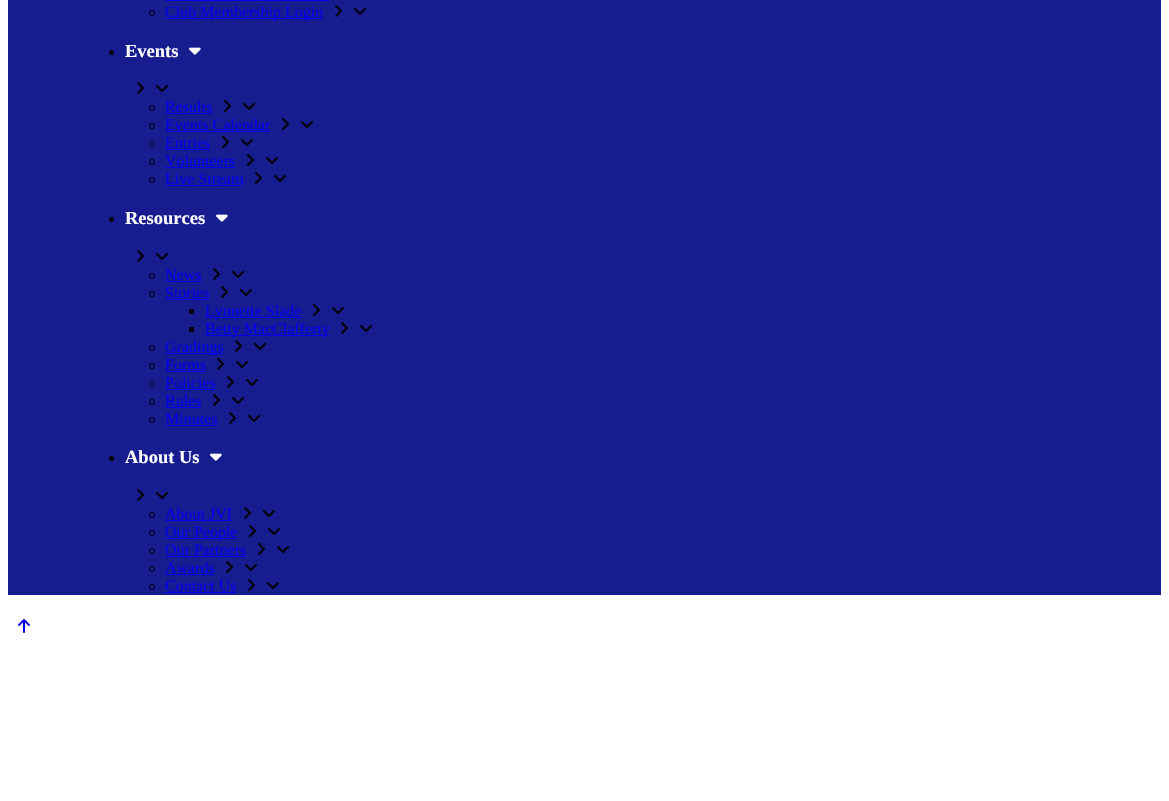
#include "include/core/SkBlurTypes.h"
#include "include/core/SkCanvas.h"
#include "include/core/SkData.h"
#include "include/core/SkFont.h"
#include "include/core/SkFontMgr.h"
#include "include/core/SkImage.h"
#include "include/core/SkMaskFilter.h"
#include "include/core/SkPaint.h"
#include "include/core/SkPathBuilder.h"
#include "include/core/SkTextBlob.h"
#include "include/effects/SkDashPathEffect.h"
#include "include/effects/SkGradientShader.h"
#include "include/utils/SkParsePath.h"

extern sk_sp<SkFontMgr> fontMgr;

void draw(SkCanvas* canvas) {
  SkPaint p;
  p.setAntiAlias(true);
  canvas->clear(SK_ColorWHITE);
  p.setColor(SkColorSetRGB(23, 28, 143));
  canvas->drawRect(SkRect::MakeLTRB(8, 0, 1161, 595), p);
  p.setColor(SkColorSetRGB(0, 0, 238));
  canvas->drawRect(SkRect::MakeLTRB(165, 0, 329, 1), p);
  p.setStyle(SkPaint::kStroke_Style);
  p.setStrokeWidth(1);
  p.setColor(SK_ColorBLACK);
  canvas->drawCircle(152, 13, 2.5f, p);
  p.setStyle(SkPaint::kFill_Style);
  p.setColor(SkColorSetRGB(0, 0, 238));
  canvas->drawRect(SkRect::MakeLTRB(165, 18, 323, 19), p);
  canvas->drawImageRect(SkImages::DeferredFromEncodedData(SkData::MakeFromFileName("images/1.png")), SkRect::MakeLTRB(335, 5, 342, 17), SkSamplingOptions());
  canvas->drawImageRect(SkImages::DeferredFromEncodedData(SkData::MakeFromFileName("images/2.png")), SkRect::MakeLTRB(354, 8, 366, 15), SkSamplingOptions());
  p.setColor(SK_ColorBLACK);
  canvas->drawCircle(111.5f, 52.5f, 2.5f, p);
  canvas->drawImageRect(SkImages::DeferredFromEncodedData(SkData::MakeFromFileName("images/3.png")), SkRect::MakeLTRB(189, 47, 201, 55), SkSamplingOptions());
  canvas->drawImageRect(SkImages::DeferredFromEncodedData(SkData::MakeFromFileName("images/1.png")), SkRect::MakeLTRB(137, 82, 144, 94), SkSamplingOptions());
  canvas->drawImageRect(SkImages::DeferredFromEncodedData(SkData::MakeFromFileName("images/2.png")), SkRect::MakeLTRB(156, 85, 168, 92), SkSamplingOptions());
  p.setStyle(SkPaint::kStroke_Style);
  canvas->drawCircle(152, 108, 2.5f, p);
  p.setStyle(SkPaint::kFill_Style);
  p.setColor(SkColorSetRGB(0, 0, 238));
  canvas->drawRect(SkRect::MakeLTRB(165, 113, 212, 114), p);
  canvas->drawImageRect(SkImages::DeferredFromEncodedData(SkData::MakeFromFileName("images/1.png")), SkRect::MakeLTRB(224, 100, 231, 112), SkSamplingOptions());
  canvas->drawImageRect(SkImages::DeferredFromEncodedData(SkData::MakeFromFileName("images/2.png")), SkRect::MakeLTRB(243, 103, 255, 110), SkSamplingOptions());
  p.setStyle(SkPaint::kStroke_Style);
  p.setColor(SK_ColorBLACK);
  canvas->drawCircle(152, 126, 2.5f, p);
  p.setStyle(SkPaint::kFill_Style);
  p.setColor(SkColorSetRGB(0, 0, 238));
  canvas->drawRect(SkRect::MakeLTRB(165, 131, 270, 132), p);
  canvas->drawImageRect(SkImages::DeferredFromEncodedData(SkData::MakeFromFileName("images/1.png")), SkRect::MakeLTRB(282, 118, 289, 130), SkSamplingOptions());
  canvas->drawImageRect(SkImages::DeferredFromEncodedData(SkData::MakeFromFileName("images/2.png")), SkRect::MakeLTRB(301, 121, 313, 128), SkSamplingOptions());
  p.setStyle(SkPaint::kStroke_Style);
  p.setColor(SK_ColorBLACK);
  canvas->drawCircle(152, 144, 2.5f, p);
  p.setStyle(SkPaint::kFill_Style);
  p.setColor(SkColorSetRGB(0, 0, 238));
  canvas->drawRect(SkRect::MakeLTRB(165, 149, 210, 150), p);
  canvas->drawImageRect(SkImages::DeferredFromEncodedData(SkData::MakeFromFileName("images/1.png")), SkRect::MakeLTRB(222, 136, 229, 148), SkSamplingOptions());
  canvas->drawImageRect(SkImages::DeferredFromEncodedData(SkData::MakeFromFileName("images/2.png")), SkRect::MakeLTRB(241, 139, 253, 146), SkSamplingOptions());
  p.setStyle(SkPaint::kStroke_Style);
  p.setColor(SK_ColorBLACK);
  canvas->drawCircle(152, 162, 2.5f, p);
  p.setStyle(SkPaint::kFill_Style);
  p.setColor(SkColorSetRGB(0, 0, 238));
  canvas->drawRect(SkRect::MakeLTRB(165, 167, 235, 168), p);
  canvas->drawImageRect(SkImages::DeferredFromEncodedData(SkData::MakeFromFileName("images/1.png")), SkRect::MakeLTRB(247, 154, 254, 166), SkSamplingOptions());
  canvas->drawImageRect(SkImages::DeferredFromEncodedData(SkData::MakeFromFileName("images/2.png")), SkRect::MakeLTRB(266, 157, 278, 164), SkSamplingOptions());
  p.setStyle(SkPaint::kStroke_Style);
  p.setColor(SK_ColorBLACK);
  canvas->drawCircle(152, 180, 2.5f, p);
  p.setStyle(SkPaint::kFill_Style);
  p.setColor(SkColorSetRGB(0, 0, 238));
  canvas->drawRect(SkRect::MakeLTRB(165, 185, 243, 186), p);
  canvas->drawImageRect(SkImages::DeferredFromEncodedData(SkData::MakeFromFileName("images/1.png")), SkRect::MakeLTRB(255, 172, 262, 184), SkSamplingOptions());
  canvas->drawImageRect(SkImages::DeferredFromEncodedData(SkData::MakeFromFileName("images/2.png")), SkRect::MakeLTRB(274, 175, 286, 182), SkSamplingOptions());
  p.setColor(SK_ColorBLACK);
  canvas->drawCircle(111.5f, 219.5f, 2.5f, p);
  canvas->drawImageRect(SkImages::DeferredFromEncodedData(SkData::MakeFromFileName("images/3.png")), SkRect::MakeLTRB(216, 214, 228, 222), SkSamplingOptions());
  canvas->drawImageRect(SkImages::DeferredFromEncodedData(SkData::MakeFromFileName("images/1.png")), SkRect::MakeLTRB(137, 250, 144, 262), SkSamplingOptions());
  canvas->drawImageRect(SkImages::DeferredFromEncodedData(SkData::MakeFromFileName("images/2.png")), SkRect::MakeLTRB(156, 253, 168, 260), SkSamplingOptions());
  p.setStyle(SkPaint::kStroke_Style);
  canvas->drawCircle(152, 276, 2.5f, p);
  p.setStyle(SkPaint::kFill_Style);
  p.setColor(SkColorSetRGB(0, 0, 238));
  canvas->drawRect(SkRect::MakeLTRB(165, 281, 201, 282), p);
  canvas->drawImageRect(SkImages::DeferredFromEncodedData(SkData::MakeFromFileName("images/1.png")), SkRect::MakeLTRB(213, 268, 220, 280), SkSamplingOptions());
  canvas->drawImageRect(SkImages::DeferredFromEncodedData(SkData::MakeFromFileName("images/2.png")), SkRect::MakeLTRB(232, 271, 244, 278), SkSamplingOptions());
  p.setStyle(SkPaint::kStroke_Style);
  p.setColor(SK_ColorBLACK);
  canvas->drawCircle(152, 294, 2.5f, p);
  p.setStyle(SkPaint::kFill_Style);
  p.setColor(SkColorSetRGB(0, 0, 238));
  canvas->drawRect(SkRect::MakeLTRB(165, 299, 209, 300), p);
  canvas->drawImageRect(SkImages::DeferredFromEncodedData(SkData::MakeFromFileName("images/1.png")), SkRect::MakeLTRB(221, 286, 228, 298), SkSamplingOptions());
  canvas->drawImageRect(SkImages::DeferredFromEncodedData(SkData::MakeFromFileName("images/2.png")), SkRect::MakeLTRB(240, 289, 252, 296), SkSamplingOptions());
  p.setColor(SK_ColorBLACK);
  canvas->drawRect(SkRect::MakeLTRB(189, 309, 194, 314), p);
  p.setColor(SkColorSetRGB(0, 0, 238));
  canvas->drawRect(SkRect::MakeLTRB(205, 317, 301, 318), p);
  canvas->drawImageRect(SkImages::DeferredFromEncodedData(SkData::MakeFromFileName("images/1.png")), SkRect::MakeLTRB(313, 304, 320, 316), SkSamplingOptions());
  canvas->drawImageRect(SkImages::DeferredFromEncodedData(SkData::MakeFromFileName("images/2.png")), SkRect::MakeLTRB(332, 307, 344, 314), SkSamplingOptions());
  p.setColor(SK_ColorBLACK);
  canvas->drawRect(SkRect::MakeLTRB(189, 327, 194, 332), p);
  p.setColor(SkColorSetRGB(0, 0, 238));
  canvas->drawRect(SkRect::MakeLTRB(205, 335, 329, 336), p);
  canvas->drawImageRect(SkImages::DeferredFromEncodedData(SkData::MakeFromFileName("images/1.png")), SkRect::MakeLTRB(341, 322, 348, 334), SkSamplingOptions());
  canvas->drawImageRect(SkImages::DeferredFromEncodedData(SkData::MakeFromFileName("images/2.png")), SkRect::MakeLTRB(360, 325, 372, 332), SkSamplingOptions());
  p.setStyle(SkPaint::kStroke_Style);
  p.setColor(SK_ColorBLACK);
  canvas->drawCircle(152, 348, 2.5f, p);
  p.setStyle(SkPaint::kFill_Style);
  p.setColor(SkColorSetRGB(0, 0, 238));
  canvas->drawRect(SkRect::MakeLTRB(165, 353, 223, 354), p);
  canvas->drawImageRect(SkImages::DeferredFromEncodedData(SkData::MakeFromFileName("images/1.png")), SkRect::MakeLTRB(235, 340, 242, 352), SkSamplingOptions());
  canvas->drawImageRect(SkImages::DeferredFromEncodedData(SkData::MakeFromFileName("images/2.png")), SkRect::MakeLTRB(254, 343, 266, 350), SkSamplingOptions());
  p.setStyle(SkPaint::kStroke_Style);
  p.setColor(SK_ColorBLACK);
  canvas->drawCircle(152, 366, 2.5f, p);
  p.setStyle(SkPaint::kFill_Style);
  p.setColor(SkColorSetRGB(0, 0, 238));
  canvas->drawRect(SkRect::MakeLTRB(165, 371, 205, 372), p);
  canvas->drawImageRect(SkImages::DeferredFromEncodedData(SkData::MakeFromFileName("images/1.png")), SkRect::MakeLTRB(217, 358, 224, 370), SkSamplingOptions());
  canvas->drawImageRect(SkImages::DeferredFromEncodedData(SkData::MakeFromFileName("images/2.png")), SkRect::MakeLTRB(236, 361, 248, 368), SkSamplingOptions());
  p.setStyle(SkPaint::kStroke_Style);
  p.setColor(SK_ColorBLACK);
  canvas->drawCircle(152, 384, 2.5f, p);
  p.setStyle(SkPaint::kFill_Style);
  p.setColor(SkColorSetRGB(0, 0, 238));
  canvas->drawRect(SkRect::MakeLTRB(165, 389, 215, 390), p);
  canvas->drawImageRect(SkImages::DeferredFromEncodedData(SkData::MakeFromFileName("images/1.png")), SkRect::MakeLTRB(227, 376, 234, 388), SkSamplingOptions());
  canvas->drawImageRect(SkImages::DeferredFromEncodedData(SkData::MakeFromFileName("images/2.png")), SkRect::MakeLTRB(246, 379, 258, 386), SkSamplingOptions());
  p.setStyle(SkPaint::kStroke_Style);
  p.setColor(SK_ColorBLACK);
  canvas->drawCircle(152, 402, 2.5f, p);
  p.setStyle(SkPaint::kFill_Style);
  p.setColor(SkColorSetRGB(0, 0, 238));
  canvas->drawRect(SkRect::MakeLTRB(165, 407, 201, 408), p);
  canvas->drawImageRect(SkImages::DeferredFromEncodedData(SkData::MakeFromFileName("images/1.png")), SkRect::MakeLTRB(213, 394, 220, 406), SkSamplingOptions());
  canvas->drawImageRect(SkImages::DeferredFromEncodedData(SkData::MakeFromFileName("images/2.png")), SkRect::MakeLTRB(232, 397, 244, 404), SkSamplingOptions());
  p.setStyle(SkPaint::kStroke_Style);
  p.setColor(SK_ColorBLACK);
  canvas->drawCircle(152, 420, 2.5f, p);
  p.setStyle(SkPaint::kFill_Style);
  p.setColor(SkColorSetRGB(0, 0, 238));
  canvas->drawRect(SkRect::MakeLTRB(165, 425, 217, 426), p);
  canvas->drawImageRect(SkImages::DeferredFromEncodedData(SkData::MakeFromFileName("images/1.png")), SkRect::MakeLTRB(229, 412, 236, 424), SkSamplingOptions());
  canvas->drawImageRect(SkImages::DeferredFromEncodedData(SkData::MakeFromFileName("images/2.png")), SkRect::MakeLTRB(248, 415, 260, 422), SkSamplingOptions());
  p.setColor(SK_ColorBLACK);
  canvas->drawCircle(111.5f, 458.5f, 2.5f, p);
  canvas->drawImageRect(SkImages::DeferredFromEncodedData(SkData::MakeFromFileName("images/3.png")), SkRect::MakeLTRB(210, 453, 222, 461), SkSamplingOptions());
  canvas->drawImageRect(SkImages::DeferredFromEncodedData(SkData::MakeFromFileName("images/1.png")), SkRect::MakeLTRB(137, 489, 144, 501), SkSamplingOptions());
  canvas->drawImageRect(SkImages::DeferredFromEncodedData(SkData::MakeFromFileName("images/2.png")), SkRect::MakeLTRB(156, 492, 168, 499), SkSamplingOptions());
  p.setStyle(SkPaint::kStroke_Style);
  canvas->drawCircle(152, 515, 2.5f, p);
  p.setStyle(SkPaint::kFill_Style);
  p.setColor(SkColorSetRGB(0, 0, 238));
  canvas->drawRect(SkRect::MakeLTRB(165, 520, 232, 521), p);
  canvas->drawImageRect(SkImages::DeferredFromEncodedData(SkData::MakeFromFileName("images/1.png")), SkRect::MakeLTRB(244, 507, 251, 519), SkSamplingOptions());
  canvas->drawImageRect(SkImages::DeferredFromEncodedData(SkData::MakeFromFileName("images/2.png")), SkRect::MakeLTRB(263, 510, 275, 517), SkSamplingOptions());
  p.setStyle(SkPaint::kStroke_Style);
  p.setColor(SK_ColorBLACK);
  canvas->drawCircle(152, 533, 2.5f, p);
  p.setStyle(SkPaint::kFill_Style);
  p.setColor(SkColorSetRGB(0, 0, 238));
  canvas->drawRect(SkRect::MakeLTRB(165, 538, 237, 539), p);
  canvas->drawImageRect(SkImages::DeferredFromEncodedData(SkData::MakeFromFileName("images/1.png")), SkRect::MakeLTRB(249, 525, 256, 537), SkSamplingOptions());
  canvas->drawImageRect(SkImages::DeferredFromEncodedData(SkData::MakeFromFileName("images/2.png")), SkRect::MakeLTRB(268, 528, 280, 535), SkSamplingOptions());
  p.setStyle(SkPaint::kStroke_Style);
  p.setColor(SK_ColorBLACK);
  canvas->drawCircle(152, 551, 2.5f, p);
  p.setStyle(SkPaint::kFill_Style);
  p.setColor(SkColorSetRGB(0, 0, 238));
  canvas->drawRect(SkRect::MakeLTRB(165, 556, 246, 557), p);
  canvas->drawImageRect(SkImages::DeferredFromEncodedData(SkData::MakeFromFileName("images/1.png")), SkRect::MakeLTRB(258, 543, 265, 555), SkSamplingOptions());
  canvas->drawImageRect(SkImages::DeferredFromEncodedData(SkData::MakeFromFileName("images/2.png")), SkRect::MakeLTRB(277, 546, 289, 553), SkSamplingOptions());
  p.setStyle(SkPaint::kStroke_Style);
  p.setColor(SK_ColorBLACK);
  canvas->drawCircle(152, 569, 2.5f, p);
  p.setStyle(SkPaint::kFill_Style);
  p.setColor(SkColorSetRGB(0, 0, 238));
  canvas->drawRect(SkRect::MakeLTRB(165, 574, 214, 575), p);
  canvas->drawImageRect(SkImages::DeferredFromEncodedData(SkData::MakeFromFileName("images/1.png")), SkRect::MakeLTRB(226, 561, 233, 573), SkSamplingOptions());
  canvas->drawImageRect(SkImages::DeferredFromEncodedData(SkData::MakeFromFileName("images/2.png")), SkRect::MakeLTRB(245, 564, 257, 571), SkSamplingOptions());
  p.setStyle(SkPaint::kStroke_Style);
  p.setColor(SK_ColorBLACK);
  canvas->drawCircle(152, 587, 2.5f, p);
  p.setStyle(SkPaint::kFill_Style);
  p.setColor(SkColorSetRGB(0, 0, 238));
  canvas->drawRect(SkRect::MakeLTRB(165, 592, 236, 593), p);
  canvas->drawImageRect(SkImages::DeferredFromEncodedData(SkData::MakeFromFileName("images/1.png")), SkRect::MakeLTRB(248, 579, 255, 591), SkSamplingOptions());
  canvas->drawImageRect(SkImages::DeferredFromEncodedData(SkData::MakeFromFileName("images/2.png")), SkRect::MakeLTRB(267, 582, 279, 589), SkSamplingOptions());
  canvas->drawImageRect(SkImages::DeferredFromEncodedData(SkData::MakeFromFileName("images/4.png")), SkRect::MakeLTRB(18, 619, 30, 633), SkSamplingOptions());
  SkFont font1(fontMgr->matchFamilyStyle("Liberation Serif", SkFontStyle::Normal()), 16);
  font1.setSubpixel(true);
  canvas->drawString("Club Membership Login", 165, 17, font1, p);
  SkFont font2(fontMgr->matchFamilyStyle("Liberation Serif", SkFontStyle::Bold()), 18.5f);
  font2.setSubpixel(true);
  p.setColor(SK_ColorWHITE);
  canvas->drawString("Events", 125, 57, font2, p);
  p.setColor(SkColorSetRGB(0, 0, 238));
  canvas->drawString("Results", 165, 112, font1, p);
  canvas->drawString("Events Calendar", 165, 130, font1, p);
  canvas->drawString("Entries", 165, 148, font1, p);
  canvas->drawString("Volunteers", 165, 166, font1, p);
  canvas->drawString("Live Stream", 165, 184, font1, p);
  p.setColor(SK_ColorWHITE);
  canvas->drawString("Resources", 125, 224, font2, p);
  p.setColor(SkColorSetRGB(0, 0, 238));
  canvas->drawString("News", 165, 280, font1, p);
  canvas->drawString("Stories", 165, 298, font1, p);
  canvas->drawString("Lynnette Slade", 205, 316, font1, p);
  canvas->drawString("Betty MacClafferty", 205, 334, font1, p);
  canvas->drawString("Gradings", 165, 352, font1, p);
  canvas->drawString("Forms", 165, 370, font1, p);
  canvas->drawString("Policies", 165, 388, font1, p);
  canvas->drawString("Rules", 165, 406, font1, p);
  canvas->drawString("Minutes", 165, 424, font1, p);
  p.setColor(SK_ColorWHITE);
  canvas->drawString("About Us", 125, 463, font2, p);
  p.setColor(SkColorSetRGB(0, 0, 238));
  canvas->drawString("About JVI", 165, 519, font1, p);
  canvas->drawString("Our People", 165, 537, font1, p);
  canvas->drawString("Our Partners", 165, 555, font1, p);
  canvas->drawString("Awards", 165, 573, font1, p);
  canvas->drawString("Contact Us", 165, 591, font1, p);
}
